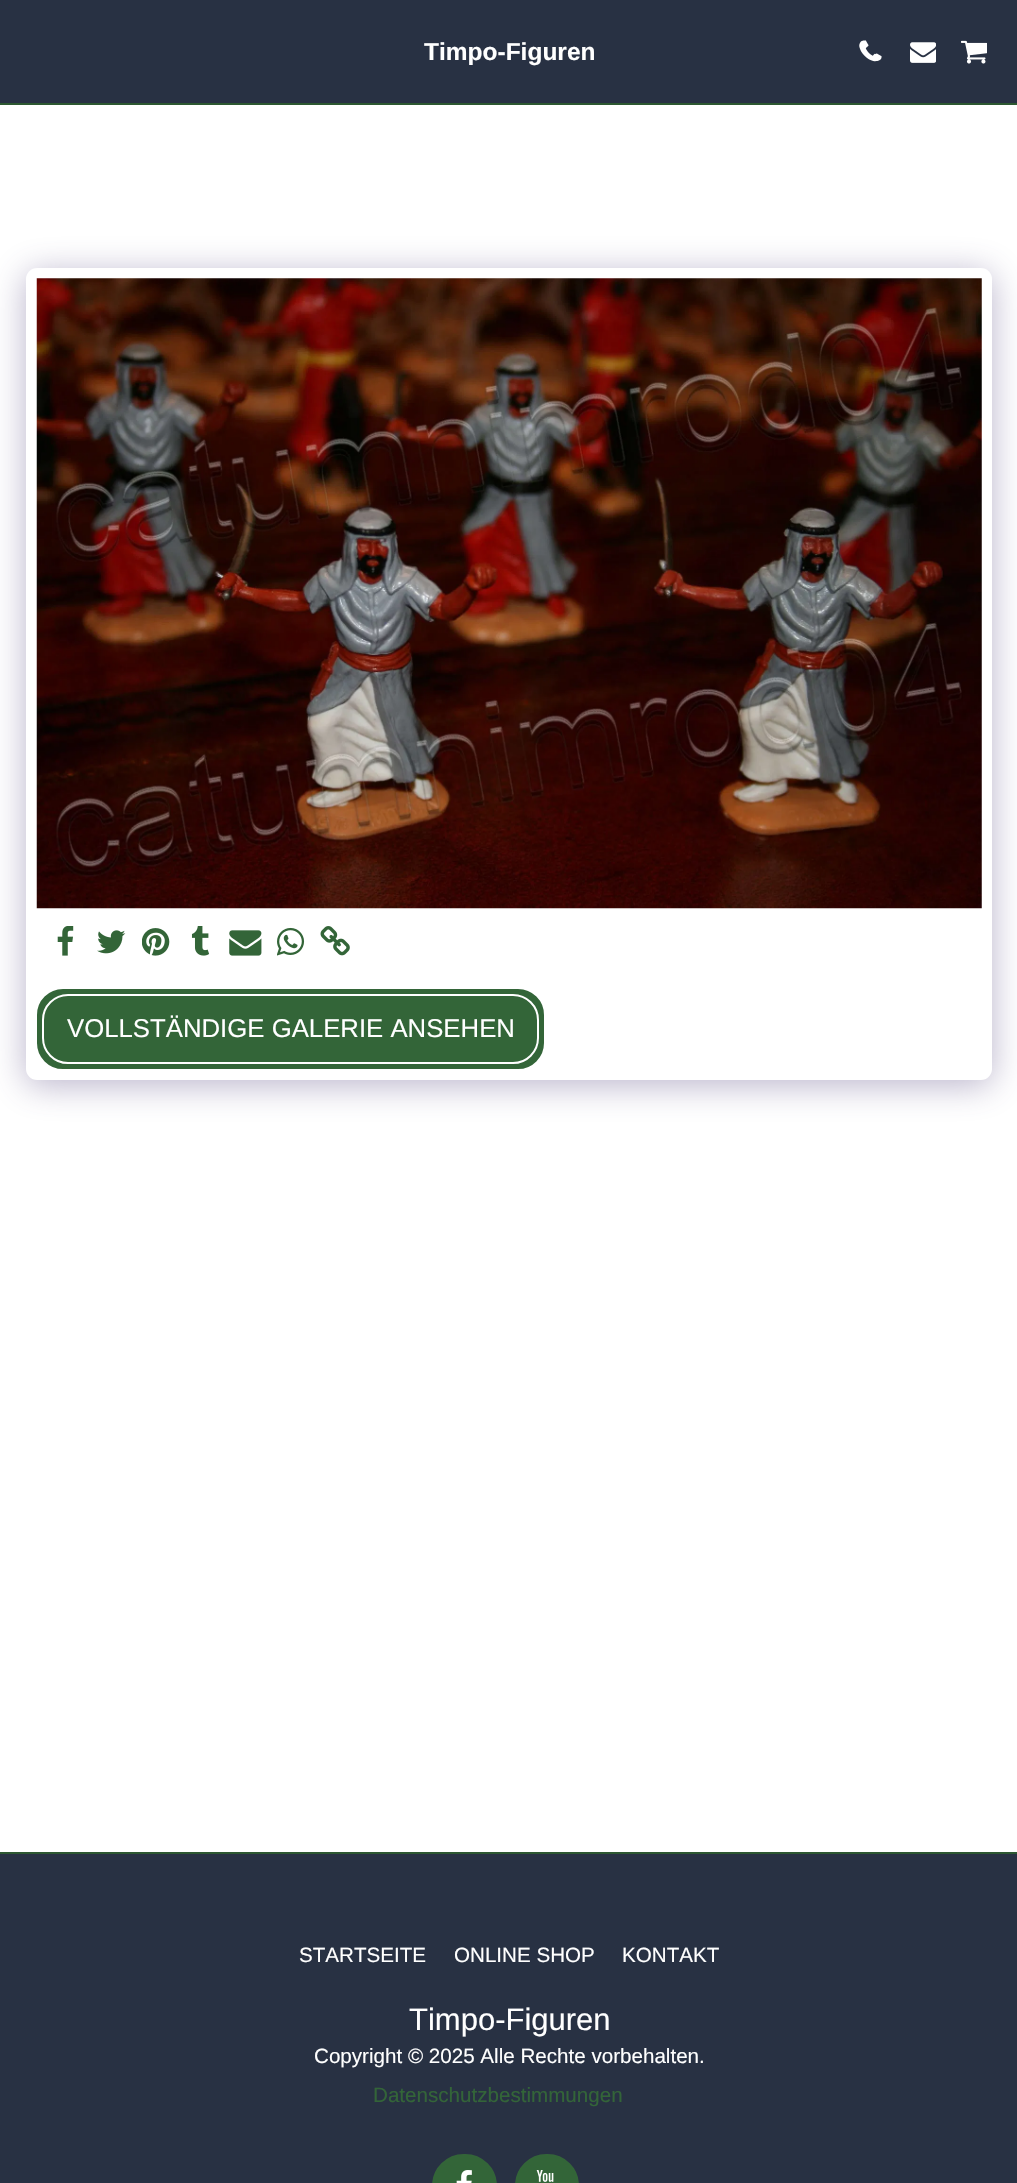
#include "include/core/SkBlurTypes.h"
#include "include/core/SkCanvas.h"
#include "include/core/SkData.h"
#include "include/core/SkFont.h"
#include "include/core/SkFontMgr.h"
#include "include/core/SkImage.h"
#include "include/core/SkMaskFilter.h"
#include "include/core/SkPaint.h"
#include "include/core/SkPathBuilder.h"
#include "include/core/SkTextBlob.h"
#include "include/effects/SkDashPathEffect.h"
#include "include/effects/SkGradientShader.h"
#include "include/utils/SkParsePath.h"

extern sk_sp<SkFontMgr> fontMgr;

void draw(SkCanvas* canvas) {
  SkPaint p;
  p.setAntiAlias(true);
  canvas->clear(SK_ColorWHITE);
  p.setColor(SkColorSetRGB(40, 49, 67));
  canvas->drawRect(SkRect::MakeLTRB(0, 0, 1017, 103), p);
  p.setColor(SkColorSetRGB(45, 88, 49));
  canvas->drawRect(SkRect::MakeLTRB(0, 103, 1017, 105), p);
  canvas->drawImageRect(SkImages::DeferredFromEncodedData(SkData::MakeFromFileName("images/1.png")), SkRect::MakeLTRB(863, 40, 882, 61), SkSamplingOptions());
  canvas->drawImageRect(SkImages::DeferredFromEncodedData(SkData::MakeFromFileName("images/2.png")), SkRect::MakeLTRB(859, 40, 879, 62), SkSamplingOptions());
  canvas->drawImageRect(SkImages::DeferredFromEncodedData(SkData::MakeFromFileName("images/3.png")), SkRect::MakeLTRB(910, 42, 936, 63), SkSamplingOptions());
  canvas->drawImageRect(SkImages::DeferredFromEncodedData(SkData::MakeFromFileName("images/4.png")), SkRect::MakeLTRB(961, 40, 987, 64), SkSamplingOptions());
  p.setColor(SkColorSetARGB(102, 77, 63, 122));
  p.setMaskFilter(SkMaskFilter::MakeBlur(kNormal_SkBlurStyle, 17.5f));
  canvas->drawRoundRect(SkRect::MakeLTRB(26, 273, 992, 1085), 11, 11, p);
  p.setMaskFilter(nullptr);
  p.setColor(SK_ColorWHITE);
  canvas->drawRoundRect(SkRect::MakeLTRB(26, 268, 992, 1080), 11, 11, p);
  canvas->drawImageRect(SkImages::DeferredFromEncodedData(SkData::MakeFromFileName("images/5.png")), SkRect::MakeLTRB(36, 278, 982, 909), SkSamplingOptions());
  canvas->drawImageRect(SkImages::DeferredFromEncodedData(SkData::MakeFromFileName("images/6.png")), SkRect::MakeLTRB(57, 926, 74, 956), SkSamplingOptions());
  canvas->drawImageRect(SkImages::DeferredFromEncodedData(SkData::MakeFromFileName("images/7.png")), SkRect::MakeLTRB(97, 930, 126, 954), SkSamplingOptions());
  canvas->drawImageRect(SkImages::DeferredFromEncodedData(SkData::MakeFromFileName("images/8.png")), SkRect::MakeLTRB(142, 928, 170, 956), SkSamplingOptions());
  canvas->drawImageRect(SkImages::DeferredFromEncodedData(SkData::MakeFromFileName("images/9.png")), SkRect::MakeLTRB(191, 926, 210, 956), SkSamplingOptions());
  canvas->drawImageRect(SkImages::DeferredFromEncodedData(SkData::MakeFromFileName("images/10.png")), SkRect::MakeLTRB(229, 930, 262, 956), SkSamplingOptions());
  canvas->drawImageRect(SkImages::DeferredFromEncodedData(SkData::MakeFromFileName("images/11.png")), SkRect::MakeLTRB(277, 927, 305, 956), SkSamplingOptions());
  canvas->drawImageRect(SkImages::DeferredFromEncodedData(SkData::MakeFromFileName("images/12.png")), SkRect::MakeLTRB(320, 926, 350, 956), SkSamplingOptions());
  p.setColor(SkColorSetRGB(51, 101, 56));
  canvas->drawRoundRect(SkRect::MakeLTRB(38, 990, 543, 1068), 25, 25, p);
  p.setStyle(SkPaint::kStroke_Style);
  p.setStrokeWidth(2);
  canvas->drawRoundRect(SkRect::MakeLTRB(38, 990, 543, 1068), 25, 25, p);
  p.setColor(SK_ColorWHITE);
  canvas->drawRoundRect(SkRect::MakeLTRB(43, 995, 538, 1063), 25, 25, p);
  p.setStyle(SkPaint::kFill_Style);
  p.setColor(SkColorSetRGB(40, 49, 67));
  canvas->drawRect(SkRect::MakeLTRB(0, 1854, 1017, 2183), p);
  p.setColor(SkColorSetRGB(45, 88, 49));
  canvas->drawRect(SkRect::MakeLTRB(0, 1852, 1017, 1854), p);
  p.setColor(SkColorSetRGB(51, 101, 56));
  canvas->drawRoundRect(SkRect::MakeLTRB(433, 2155, 496, 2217), 31.5f, 31.5f, p);
  p.setStyle(SkPaint::kStroke_Style);
  canvas->drawRoundRect(SkRect::MakeLTRB(433, 2155, 496, 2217), 31.5f, 31.5f, p);
  canvas->drawImageRect(SkImages::DeferredFromEncodedData(SkData::MakeFromFileName("images/13.png")), SkRect::MakeLTRB(456, 2170, 472, 2183), SkSamplingOptions());
  p.setStyle(SkPaint::kFill_Style);
  canvas->drawRoundRect(SkRect::MakeLTRB(516, 2155, 578, 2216), 31, 31, p);
  p.setStyle(SkPaint::kStroke_Style);
  canvas->drawRoundRect(SkRect::MakeLTRB(516, 2155, 578, 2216), 31, 31, p);
  canvas->drawImageRect(SkImages::DeferredFromEncodedData(SkData::MakeFromFileName("images/14.png")), SkRect::MakeLTRB(536, 2170, 554, 2182), SkSamplingOptions());
  canvas->save();
  canvas->clipRect(SkRect::MakeLTRB(424, 35, 595, 70));
  SkFont font1(fontMgr->matchFamilyStyle("Liberation Sans", SkFontStyle::Bold()), 24.5f);
  font1.setSubpixel(true);
  p.setStyle(SkPaint::kFill_Style);
  p.setColor(SK_ColorWHITE);
  canvas->drawString("Timpo-Figuren", 424, 60, font1, p);
  canvas->restore();
  SkFont font2(fontMgr->matchFamilyStyle("Liberation Sans", SkFontStyle::Normal()), 25.75f);
  font2.setSubpixel(true);
  canvas->drawString("VOLLSTÄNDIGE GALERIE ANSEHEN", 67, 1037, font2, p);
  SkFont font3(fontMgr->matchFamilyStyle("Liberation Sans", SkFontStyle::Normal()), 20.6f);
  font3.setSubpixel(true);
  canvas->drawString("STARTSEITE", 299, 1962, font3, p);
  canvas->drawString("ONLINE SHOP", 454, 1962, font3, p);
  canvas->drawString("KONTAKT", 622, 1962, font3, p);
  SkFont font4(fontMgr->matchFamilyStyle("Liberation Sans", SkFontStyle::Normal()), 31);
  font4.setSubpixel(true);
  canvas->drawString("Timpo-Figuren", 409, 2030, font4, p);
  canvas->drawString("Copyright © 2025 Alle Rechte vorbehalten.", 314, 2063, font3, p);
  p.setColor(SkColorSetRGB(51, 101, 56));
  canvas->drawString("Datenschutzbestimmungen", 373, 2102, font3, p);
}
